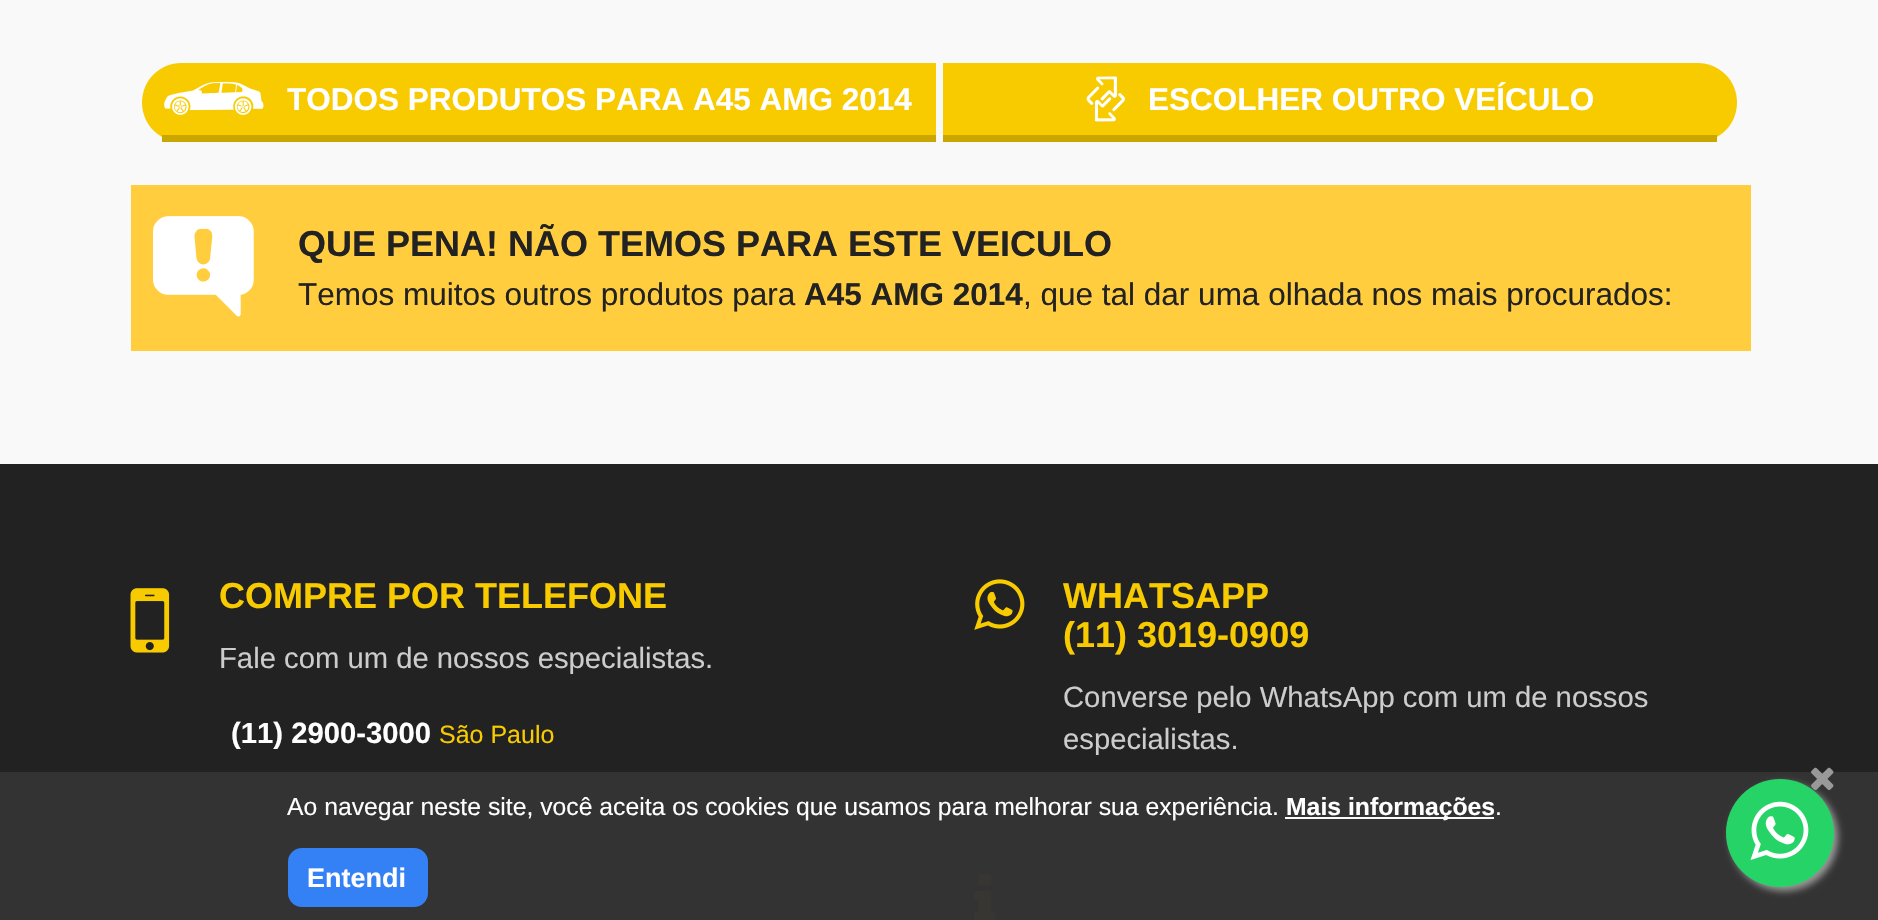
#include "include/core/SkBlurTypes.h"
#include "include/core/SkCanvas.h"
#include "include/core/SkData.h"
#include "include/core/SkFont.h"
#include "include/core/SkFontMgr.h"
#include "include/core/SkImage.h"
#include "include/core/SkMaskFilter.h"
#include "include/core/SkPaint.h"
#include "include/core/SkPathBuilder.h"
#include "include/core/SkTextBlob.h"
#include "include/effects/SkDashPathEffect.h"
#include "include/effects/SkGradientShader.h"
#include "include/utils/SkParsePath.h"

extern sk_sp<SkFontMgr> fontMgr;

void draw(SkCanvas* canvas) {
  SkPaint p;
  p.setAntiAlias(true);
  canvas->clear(SkColorSetRGB(249, 249, 249));
  p.setColor(SkColorSetRGB(247, 203, 0));
  canvas->drawPath(SkPathBuilder().moveTo(181.5f, 63).lineTo(936, 63).lineTo(936, 142).lineTo(181.5f, 142).cubicTo(159.5f, 142, 142, 124.5f, 142, 102.5f).cubicTo(142, 80.5f, 159.5f, 63, 181.5f, 63).close().detach(), p);
  p.setColor(SkColorSetRGB(201, 166, 0));
  canvas->drawRect(SkRect::MakeLTRB(162, 135, 936, 142), p);
  canvas->drawImageRect(SkImages::DeferredFromEncodedData(SkData::MakeFromFileName("images/1.png")), SkRect::MakeLTRB(164, 81, 264, 115), SkSamplingOptions());
  p.setColor(SkColorSetRGB(247, 203, 0));
  canvas->drawPath(SkPathBuilder().moveTo(943, 63).lineTo(1697.5f, 63).cubicTo(1719.5f, 63, 1737, 80.5f, 1737, 102.5f).cubicTo(1737, 124.5f, 1719.5f, 142, 1697.5f, 142).lineTo(943, 142).close().detach(), p);
  p.setColor(SkColorSetRGB(201, 166, 0));
  canvas->drawRect(SkRect::MakeLTRB(943, 135, 1717, 142), p);
  canvas->drawImageRect(SkImages::DeferredFromEncodedData(SkData::MakeFromFileName("images/2.png")), SkRect::MakeLTRB(1086, 76, 1125, 122), SkSamplingOptions());
  p.setColor(SkColorSetRGB(255, 205, 62));
  canvas->drawRect(SkRect::MakeLTRB(131, 185, 1751, 351), p);
  canvas->drawImageRect(SkImages::DeferredFromEncodedData(SkData::MakeFromFileName("images/3.png")), SkRect::MakeLTRB(153, 216, 254, 317), SkSamplingOptions());
  p.setColor(SkColorSetRGB(34, 34, 34));
  canvas->drawRect(SkRect::MakeLTRB(0, 464, 1878, 772), p);
  p.setColor(SkColorSetRGB(51, 51, 51));
  canvas->drawRect(SkRect::MakeLTRB(0, 772, 1878, 920), p);
  canvas->drawImageRect(SkImages::DeferredFromEncodedData(SkData::MakeFromFileName("images/4.png")), SkRect::MakeLTRB(130, 588, 170, 653), SkSamplingOptions());
  canvas->drawImageRect(SkImages::DeferredFromEncodedData(SkData::MakeFromFileName("images/5.png")), SkRect::MakeLTRB(974, 579, 1025, 630), SkSamplingOptions());
  canvas->drawImageRect(SkImages::DeferredFromEncodedData(SkData::MakeFromFileName("images/6.png")), SkRect::MakeLTRB(974, 874, 996, 920), SkSamplingOptions());
  p.setColor(SkColorSetRGB(251, 251, 251));
  canvas->drawRect(SkRect::MakeLTRB(1285, 817, 1494, 819), p);
  p.setColor(SkColorSetRGB(52, 129, 246));
  canvas->drawRoundRect(SkRect::MakeLTRB(289, 849, 427, 906), 13, 13, p);
  p.setStyle(SkPaint::kStroke_Style);
  p.setStrokeWidth(2);
  canvas->drawRoundRect(SkRect::MakeLTRB(289, 849, 427, 906), 13, 13, p);
  p.setStyle(SkPaint::kFill_Style);
  p.setColor(SkColorSetRGB(153, 153, 153));
  p.setMaskFilter(SkMaskFilter::MakeBlur(kNormal_SkBlurStyle, 3.5f));
  canvas->drawRoundRect(SkRect::MakeLTRB(1730, 783, 1838, 891), 54, 54, p);
  p.setMaskFilter(nullptr);
  p.setColor(SkColorSetRGB(37, 211, 102));
  canvas->drawCircle(1780, 833, 54, p);
  canvas->drawImageRect(SkImages::DeferredFromEncodedData(SkData::MakeFromFileName("images/7.png")), SkRect::MakeLTRB(1811, 767, 1834, 790), SkSamplingOptions());
  canvas->drawImageRect(SkImages::DeferredFromEncodedData(SkData::MakeFromFileName("images/8.png")), SkRect::MakeLTRB(1750, 801, 1809, 860), SkSamplingOptions());
  SkFont font1(fontMgr->matchFamilyStyle("Liberation Sans", SkFontStyle::Bold()), 31.5f);
  font1.setSubpixel(true);
  p.setColor(SK_ColorWHITE);
  canvas->drawString("TODOS PRODUTOS PARA A45 AMG 2014", 287, 110, font1, p);
  canvas->drawString("ESCOLHER OUTRO VEÍCULO", 1148, 110, font1, p);
  SkFont font2(fontMgr->matchFamilyStyle("Liberation Sans", SkFontStyle::Bold()), 36);
  font2.setSubpixel(true);
  p.setColor(SkColorSetRGB(34, 34, 34));
  canvas->drawString("QUE PENA! NÃO TEMOS PARA ESTE VEICULO", 298, 256, font2, p);
  SkFont font3(fontMgr->matchFamilyStyle("Liberation Sans", SkFontStyle::Normal()), 31.5f);
  font3.setSubpixel(true);
  canvas->drawString("Temos muitos outros produtos para", 298, 305, font3, p);
  canvas->drawString("A45 AMG 2014", 804, 305, font1, p);
  canvas->drawString(", que tal dar uma olhada nos mais procurados:", 1023, 305, font3, p);
  p.setColor(SkColorSetRGB(247, 203, 0));
  canvas->drawString("COMPRE POR TELEFONE", 219, 608, font2, p);
  SkFont font4(fontMgr->matchFamilyStyle("Liberation Sans", SkFontStyle::Normal()), 29.25f);
  font4.setSubpixel(true);
  p.setColor(SkColorSetRGB(204, 204, 204));
  canvas->drawString("Fale com um de nossos especialistas.", 219, 668, font4, p);
  SkFont font5(fontMgr->matchFamilyStyle("Liberation Sans", SkFontStyle::Bold()), 29.25f);
  font5.setSubpixel(true);
  p.setColor(SK_ColorWHITE);
  canvas->drawString("(11) 2900-3000", 231, 743, font5, p);
  SkFont font6(fontMgr->matchFamilyStyle("Liberation Sans", SkFontStyle::Normal()), 25);
  font6.setSubpixel(true);
  p.setColor(SkColorSetRGB(247, 203, 0));
  canvas->drawString("São Paulo", 439, 743, font6, p);
  canvas->drawString("WHATSAPP", 1063, 608, font2, p);
  canvas->drawString("(11) 3019-0909", 1063, 647, font2, p);
  p.setColor(SkColorSetRGB(204, 204, 204));
  canvas->drawString("Converse pelo WhatsApp com um de nossos", 1063, 707, font4, p);
  canvas->drawString("especialistas.", 1063, 749, font4, p);
  SkFont font7(fontMgr->matchFamilyStyle("Liberation Sans", SkFontStyle::Normal()), 24.75f);
  font7.setSubpixel(true);
  p.setColor(SK_ColorWHITE);
  canvas->drawString("Ao navegar neste site, você aceita os cookies que usamos para melhorar sua experiência.", 287, 815, font7, p);
  SkFont font8(fontMgr->matchFamilyStyle("Liberation Sans", SkFontStyle::Bold()), 24.75f);
  font8.setSubpixel(true);
  canvas->drawString("Mais informações", 1286, 815, font8, p);
  canvas->drawString(".", 1495, 815, font7, p);
  SkFont font9(fontMgr->matchFamilyStyle("Liberation Sans", SkFontStyle::Bold()), 27);
  font9.setSubpixel(true);
  canvas->drawString("Entendi", 307, 887, font9, p);
}
